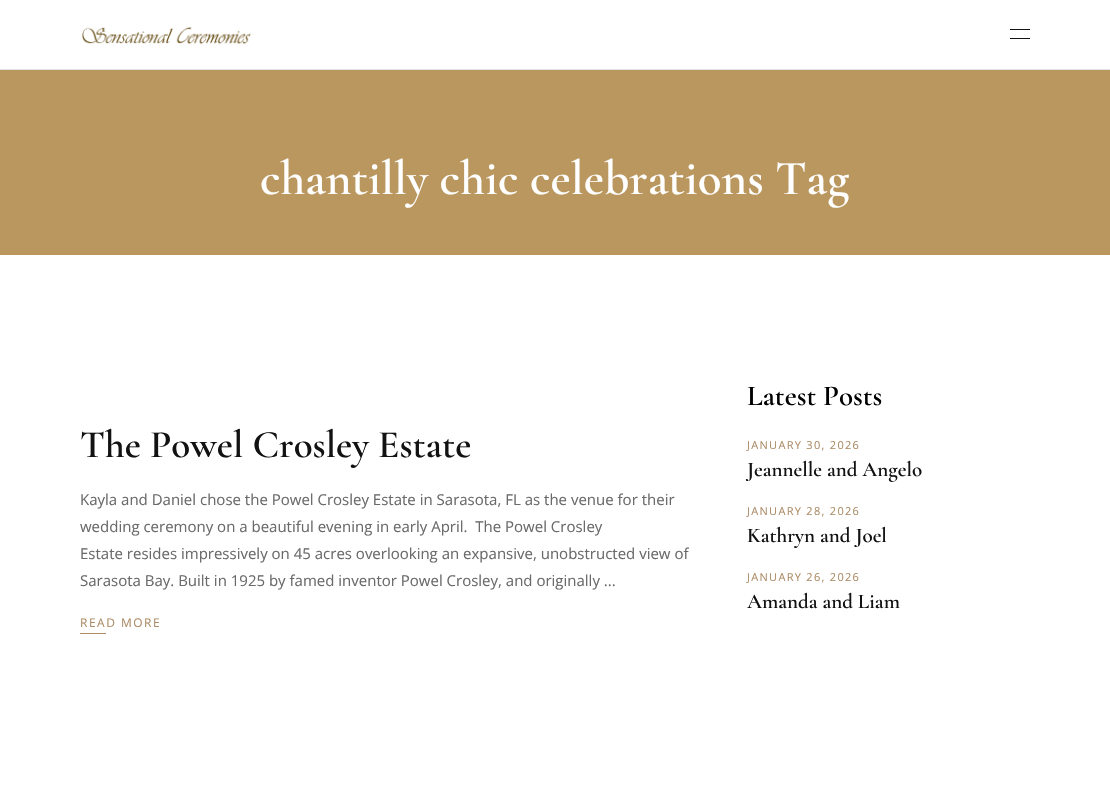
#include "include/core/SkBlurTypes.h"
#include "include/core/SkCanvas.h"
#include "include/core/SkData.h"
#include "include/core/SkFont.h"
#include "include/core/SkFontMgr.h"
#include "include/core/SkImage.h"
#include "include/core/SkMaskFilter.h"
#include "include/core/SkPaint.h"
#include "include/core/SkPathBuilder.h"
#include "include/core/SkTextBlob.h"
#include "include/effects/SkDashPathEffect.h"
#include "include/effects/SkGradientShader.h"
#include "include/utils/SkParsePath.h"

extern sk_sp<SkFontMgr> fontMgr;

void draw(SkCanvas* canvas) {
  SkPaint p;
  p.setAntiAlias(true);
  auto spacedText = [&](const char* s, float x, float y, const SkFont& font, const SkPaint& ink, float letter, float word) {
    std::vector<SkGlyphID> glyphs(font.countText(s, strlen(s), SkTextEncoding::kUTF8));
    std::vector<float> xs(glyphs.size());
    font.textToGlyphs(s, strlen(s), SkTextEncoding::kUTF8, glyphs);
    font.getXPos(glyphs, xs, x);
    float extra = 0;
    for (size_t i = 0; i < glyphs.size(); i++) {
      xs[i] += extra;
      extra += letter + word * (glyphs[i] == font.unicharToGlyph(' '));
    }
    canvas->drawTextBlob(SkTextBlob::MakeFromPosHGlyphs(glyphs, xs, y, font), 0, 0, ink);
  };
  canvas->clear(SK_ColorWHITE);
  p.setColor(SkColorSetRGB(225, 225, 225));
  canvas->drawRect(SkRect::MakeLTRB(0, 69, 1110, 70), p);
  canvas->drawImageRect(SkImages::DeferredFromEncodedData(SkData::MakeFromFileName("images/1.png")), SkRect::MakeLTRB(82, 27, 251, 45), SkSamplingOptions());
  p.setColor(SkColorSetRGB(19, 19, 19));
  canvas->drawRect(SkRect::MakeLTRB(1010, 29, 1030, 30), p);
  canvas->drawRect(SkRect::MakeLTRB(1010, 38, 1030, 39), p);
  p.setColor(SkColorSetRGB(186, 151, 95));
  canvas->drawRect(SkRect::MakeLTRB(0, 70, 1110, 255), p);
  p.setColor(SkColorSetRGB(172, 140, 103));
  canvas->drawRect(SkRect::MakeLTRB(80, 633, 106, 634), p);
  SkFont font1(fontMgr->matchFamilyStyle("Cormorant Garamond", SkFontStyle(600, SkFontStyle::kNormal_Width, SkFontStyle::kUpright_Slant)), 49);
  font1.setSubpixel(true);
  p.setColor(SK_ColorWHITE);
  canvas->drawString("chantilly chic celebrations Tag", 260, 194, font1, p);
  SkFont font2(fontMgr->matchFamilyStyle("Cormorant Garamond", SkFontStyle(600, SkFontStyle::kNormal_Width, SkFontStyle::kUpright_Slant)), 39);
  font2.setSubpixel(true);
  p.setColor(SkColorSetRGB(18, 18, 18));
  canvas->drawString("The Powel Crosley Estate", 80, 457, font2, p);
  SkFont font3(fontMgr->matchFamilyStyle("Open Sans", SkFontStyle::Normal()), 15);
  font3.setSubpixel(true);
  p.setColor(SkColorSetRGB(106, 106, 106));
  canvas->drawString("Kayla and Daniel chose the Powel Crosley Estate in Sarasota, FL as the venue for their", 80, 505, font3, p);
  canvas->drawString("wedding ceremony on a beautiful evening in early April.  The Powel Crosley", 80, 532, font3, p);
  canvas->drawString("Estate resides impressively on 45 acres overlooking an expansive, unobstructed view of", 80, 559, font3, p);
  canvas->drawString("Sarasota Bay. Built in 1925 by famed inventor Powel Crosley, and originally ...", 80, 586, font3, p);
  SkFont font4(fontMgr->matchFamilyStyle("Open Sans", SkFontStyle::Normal()), 12);
  font4.setSubpixel(true);
  p.setColor(SkColorSetRGB(172, 140, 103));
  spacedText("READ MORE", 80, 627, font4, p, 1.5f, 0);
  SkFont font5(fontMgr->matchFamilyStyle("Cormorant Garamond", SkFontStyle(600, SkFontStyle::kNormal_Width, SkFontStyle::kUpright_Slant)), 29);
  font5.setSubpixel(true);
  p.setColor(SK_ColorBLACK);
  canvas->drawString("Latest Posts", 747, 405, font5, p);
  SkFont font6(fontMgr->matchFamilyStyle("Open Sans", SkFontStyle::Normal()), 11);
  font6.setSubpixel(true);
  p.setColor(SkColorSetRGB(172, 140, 103));
  spacedText("JANUARY 30, 2026", 747, 449, font6, p, 1.3f, 0);
  SkFont font7(fontMgr->matchFamilyStyle("Cormorant Garamond", SkFontStyle(600, SkFontStyle::kNormal_Width, SkFontStyle::kUpright_Slant)), 21);
  font7.setSubpixel(true);
  p.setColor(SkColorSetRGB(18, 18, 18));
  canvas->drawString("Jeannelle and Angelo", 747, 476, font7, p);
  p.setColor(SkColorSetRGB(172, 140, 103));
  spacedText("JANUARY 28, 2026", 747, 515, font6, p, 1.3f, 0);
  p.setColor(SkColorSetRGB(18, 18, 18));
  canvas->drawString("Kathryn and Joel", 747, 542, font7, p);
  p.setColor(SkColorSetRGB(172, 140, 103));
  spacedText("JANUARY 26, 2026", 747, 581, font6, p, 1.3f, 0);
  p.setColor(SkColorSetRGB(18, 18, 18));
  canvas->drawString("Amanda and Liam", 747, 608, font7, p);
}
